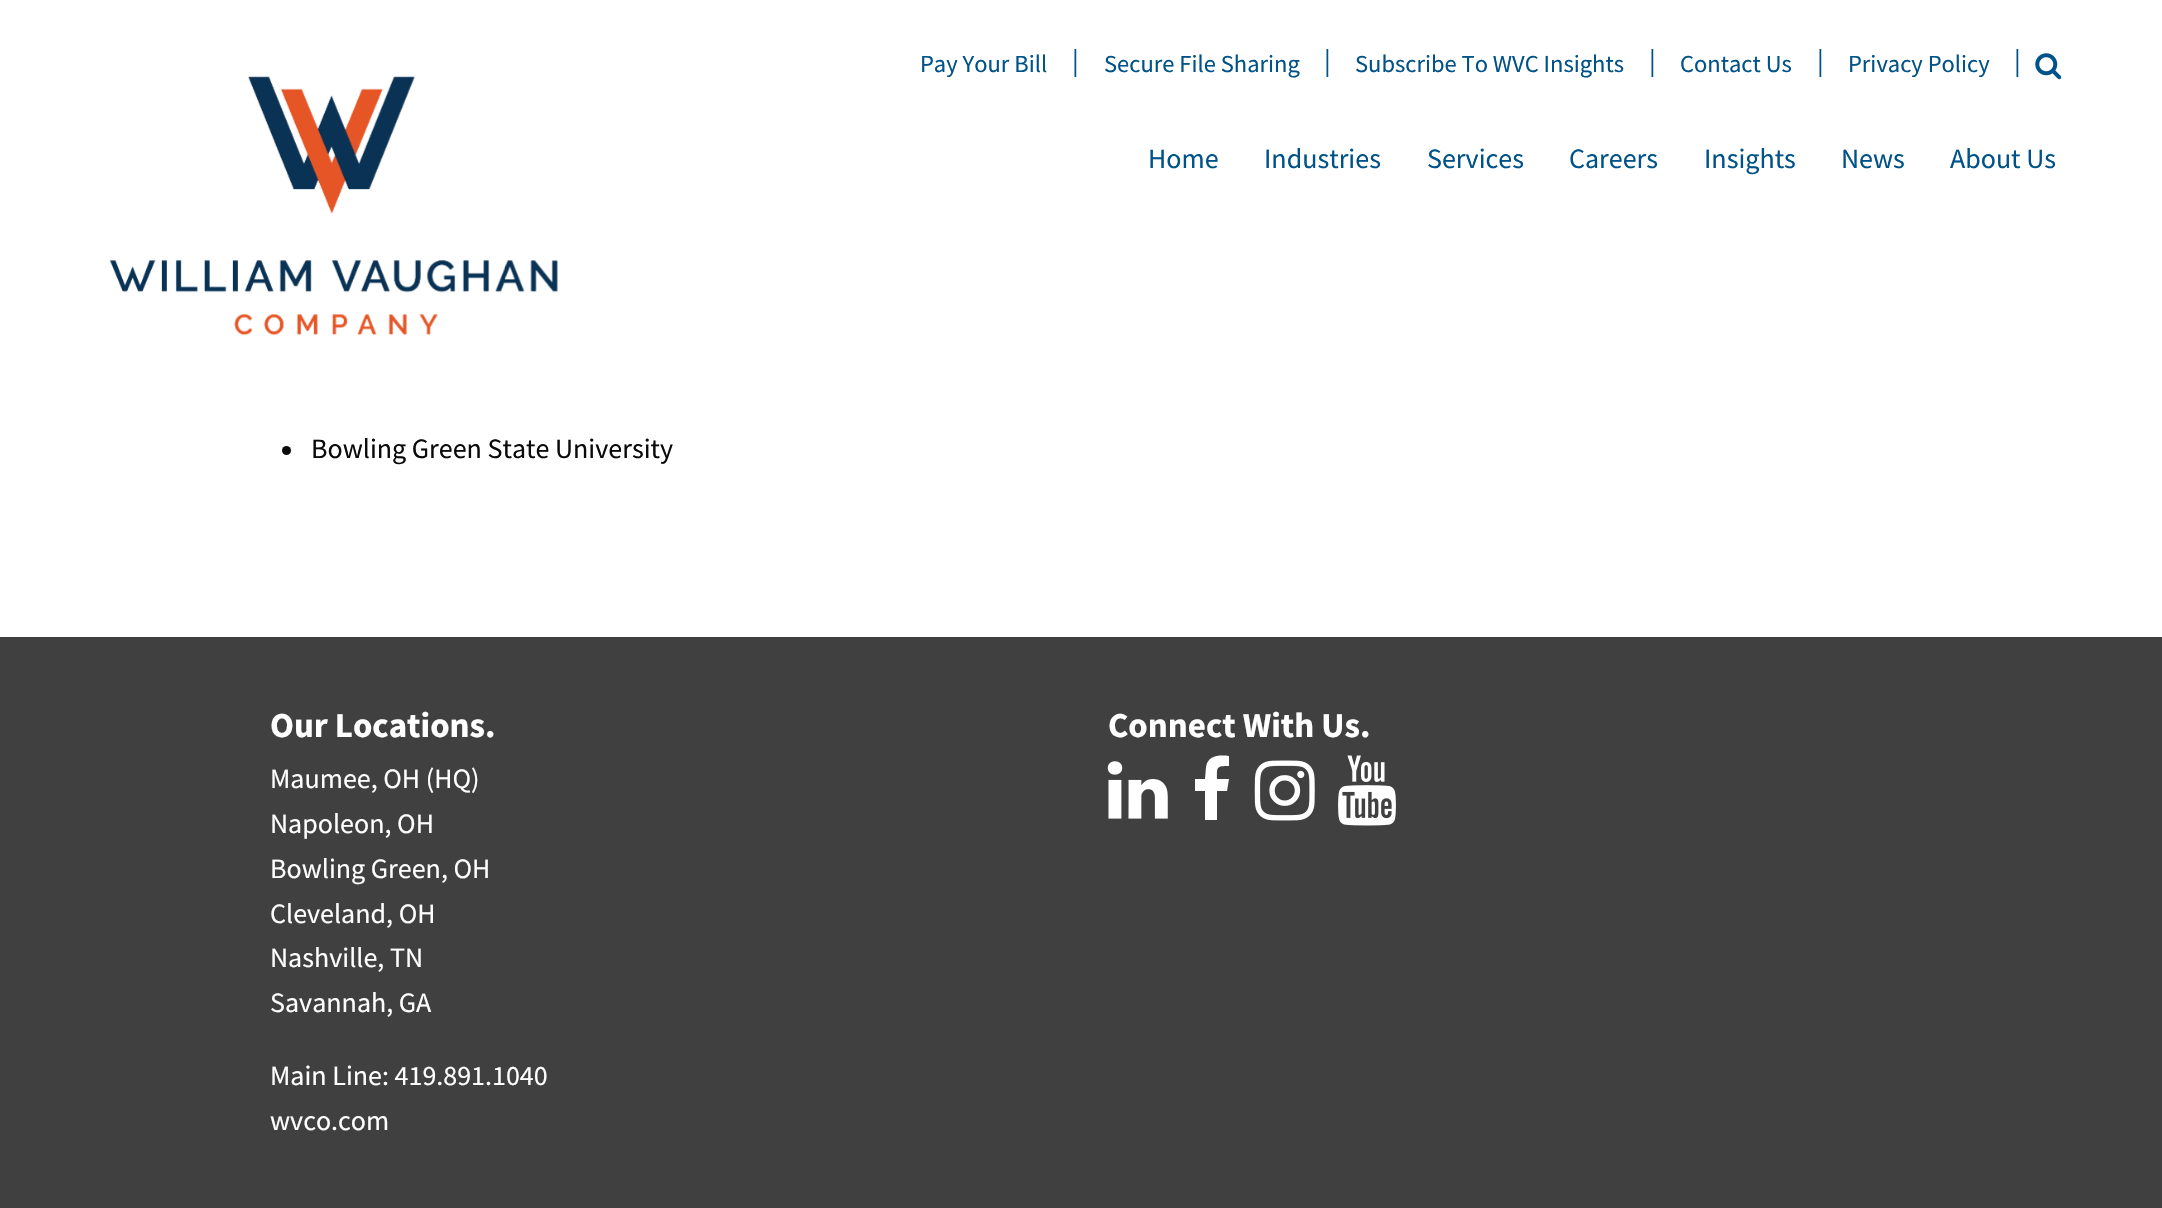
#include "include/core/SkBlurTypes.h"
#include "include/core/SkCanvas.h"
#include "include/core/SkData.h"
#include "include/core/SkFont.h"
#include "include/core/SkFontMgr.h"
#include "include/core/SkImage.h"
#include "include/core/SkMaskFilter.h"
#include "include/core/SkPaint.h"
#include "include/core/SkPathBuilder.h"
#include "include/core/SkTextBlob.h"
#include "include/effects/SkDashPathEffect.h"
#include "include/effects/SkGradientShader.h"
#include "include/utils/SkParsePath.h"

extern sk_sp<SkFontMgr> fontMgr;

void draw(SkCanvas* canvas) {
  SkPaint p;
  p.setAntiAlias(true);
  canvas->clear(SK_ColorWHITE);
  canvas->drawImageRect(SkImages::DeferredFromEncodedData(SkData::MakeFromFileName("images/1.png")), SkRect::MakeLTRB(109, 76, 558, 336), SkSamplingOptions());
  canvas->drawImageRect(SkImages::DeferredFromEncodedData(SkData::MakeFromFileName("images/2.png")), SkRect::MakeLTRB(2035, 53, 2062, 80), SkSamplingOptions());
  p.setColor(SkColorSetRGB(10, 10, 10));
  canvas->drawCircle(286.5f, 450.5f, 4.5f, p);
  p.setColor(SkColorSetRGB(64, 64, 64));
  canvas->drawRect(SkRect::MakeLTRB(0, 637, 2162, 1208), p);
  canvas->drawImageRect(SkImages::DeferredFromEncodedData(SkData::MakeFromFileName("images/3.png")), SkRect::MakeLTRB(1107, 761, 1168, 819), SkSamplingOptions());
  p.setColor(SK_ColorWHITE);
  canvas->drawPath(SkPathBuilder().moveTo(1229, 756).lineTo(1229, 766).cubicTo(1216, 766, 1217, 767, 1217, 779).lineTo(1229, 779).lineTo(1227, 791).lineTo(1217, 791).lineTo(1217, 820).lineTo(1205, 820).lineTo(1205, 791).lineTo(1195, 791).lineTo(1195, 779).lineTo(1205, 779).lineTo(1206, 767).cubicTo(1208, 755, 1219, 755, 1229, 756).close().detach(), p);
  canvas->drawImageRect(SkImages::DeferredFromEncodedData(SkData::MakeFromFileName("images/4.png")), SkRect::MakeLTRB(1254, 760, 1315, 821), SkSamplingOptions());
  canvas->drawImageRect(SkImages::DeferredFromEncodedData(SkData::MakeFromFileName("images/5.png")), SkRect::MakeLTRB(1338, 755, 1396, 826), SkSamplingOptions());
  SkFont font1(fontMgr->matchFamilyStyle("Source Sans Pro", SkFontStyle::Normal()), 24.5f);
  font1.setSubpixel(true);
  p.setColor(SkColorSetRGB(0, 82, 136));
  canvas->drawString("Pay Your Bill", 920, 72, font1, p);
  SkFont font2(fontMgr->matchFamilyStyle("Source Sans Pro", SkFontStyle::Normal()), 28);
  font2.setSubpixel(true);
  canvas->drawString("|", 1072, 70, font2, p);
  canvas->drawString("Secure File Sharing", 1104, 72, font1, p);
  canvas->drawString("|", 1324, 70, font2, p);
  canvas->drawString("Subscribe To WVC Insights", 1355, 72, font1, p);
  canvas->drawString("|", 1649, 70, font2, p);
  canvas->drawString("Contact Us", 1680, 72, font1, p);
  canvas->drawString("|", 1817, 70, font2, p);
  canvas->drawString("Privacy Policy", 1848, 72, font1, p);
  canvas->drawString("|", 2014, 70, font2, p);
  canvas->drawString("Home", 1148, 168, font2, p);
  canvas->drawString("Industries", 1264, 168, font2, p);
  canvas->drawString("Services", 1427, 168, font2, p);
  canvas->drawString("Careers", 1569, 168, font2, p);
  canvas->drawString("Insights", 1704, 168, font2, p);
  canvas->drawString("News", 1841, 168, font2, p);
  canvas->drawString("About Us", 1950, 168, font2, p);
  p.setColor(SkColorSetRGB(10, 10, 10));
  canvas->drawString("Bowling Green State University", 311, 458, font2, p);
  SkFont font3(fontMgr->matchFamilyStyle("Source Sans Pro", SkFontStyle::Bold()), 35);
  font3.setSubpixel(true);
  p.setColor(SK_ColorWHITE);
  canvas->drawString("Our Locations.", 270, 737, font3, p);
  canvas->drawString("Maumee, OH (HQ)", 270, 788, font2, p);
  canvas->drawString("Napoleon, OH", 270, 833, font2, p);
  canvas->drawString("Bowling Green, OH", 270, 878, font2, p);
  canvas->drawString("Cleveland, OH", 270, 923, font2, p);
  canvas->drawString("Nashville, TN", 270, 967, font2, p);
  canvas->drawString("Savannah, GA", 270, 1012, font2, p);
  canvas->drawString("Main Line: 419.891.1040", 270, 1085, font2, p);
  canvas->drawString("wvco.com", 270, 1130, font2, p);
  canvas->drawString("Connect With Us.", 1108, 737, font3, p);
}
